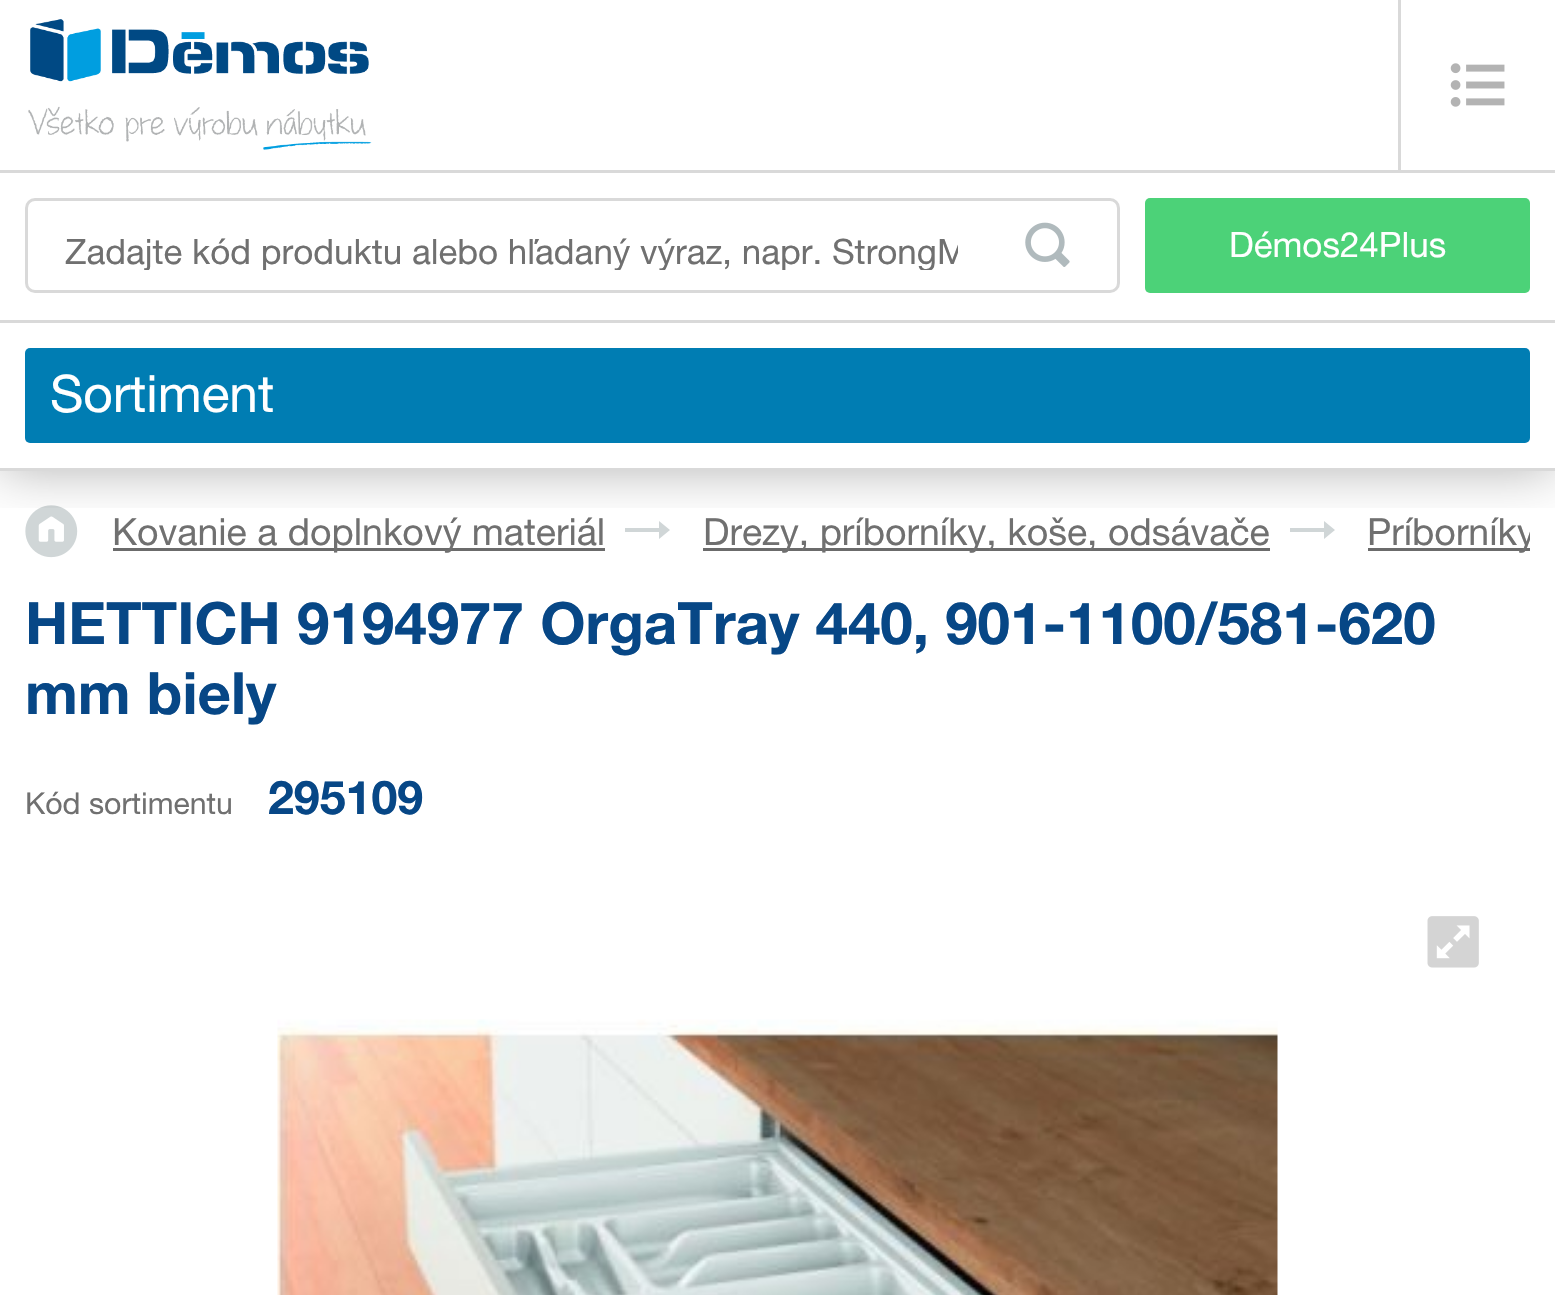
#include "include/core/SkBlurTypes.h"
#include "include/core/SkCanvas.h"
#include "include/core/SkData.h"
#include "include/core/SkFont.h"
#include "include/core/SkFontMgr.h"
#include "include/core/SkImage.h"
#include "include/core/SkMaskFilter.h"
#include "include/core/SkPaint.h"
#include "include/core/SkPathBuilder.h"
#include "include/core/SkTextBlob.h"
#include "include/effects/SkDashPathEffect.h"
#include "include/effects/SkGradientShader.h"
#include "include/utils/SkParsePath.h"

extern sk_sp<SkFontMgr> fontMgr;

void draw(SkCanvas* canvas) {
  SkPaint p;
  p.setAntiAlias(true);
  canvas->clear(SK_ColorWHITE);
  canvas->drawImageRect(SkImages::DeferredFromEncodedData(SkData::MakeFromFileName("images/4.png")), SkRect::MakeLTRB(25, 505, 78, 558), SkSamplingOptions());
  p.setColor(SkColorSetRGB(208, 214, 215));
  canvas->drawPath(SkPathBuilder().moveTo(625, 528).lineTo(625, 532).lineTo(659, 532).lineTo(659, 539).lineTo(670, 530).lineTo(659, 521).lineTo(659, 528).close().detach(), p);
  canvas->drawPath(SkPathBuilder().moveTo(1290, 528).lineTo(1290, 532).lineTo(1324, 532).lineTo(1324, 539).lineTo(1335, 530).lineTo(1324, 521).lineTo(1324, 528).close().detach(), p);
  canvas->save();
  canvas->clipRect(SkRect::MakeLTRB(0, 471, 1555, 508));
  p.setColor(SkColorSetARGB(77, 0, 0, 0));
  p.setMaskFilter(SkMaskFilter::MakeBlur(kNormal_SkBlurStyle, 25));
  canvas->drawRect(SkRect::MakeLTRB(0, 0, 1555, 470), p);
  p.setMaskFilter(nullptr);
  canvas->restore();
  p.setColor(SkColorSetRGB(217, 217, 217));
  canvas->drawRect(SkRect::MakeLTRB(0, 468, 1555, 471), p);
  canvas->drawImageRect(SkImages::DeferredFromEncodedData(SkData::MakeFromFileName("images/1.png")), SkRect::MakeLTRB(28, 19, 372, 150), SkSamplingOptions());
  canvas->drawRect(SkRect::MakeLTRB(1398, 0, 1401, 170), p);
  canvas->drawImageRect(SkImages::DeferredFromEncodedData(SkData::MakeFromFileName("images/2.png")), SkRect::MakeLTRB(1450, 63, 1505, 107), SkSamplingOptions());
  canvas->drawRect(SkRect::MakeLTRB(0, 170, 1555, 173), p);
  p.setStyle(SkPaint::kStroke_Style);
  p.setStrokeWidth(3);
  canvas->drawRoundRect(SkRect::MakeLTRB(26.5f, 199.5f, 1118.5f, 291.5f), 8.5f, 8.5f, p);
  canvas->drawImageRect(SkImages::DeferredFromEncodedData(SkData::MakeFromFileName("images/3.png")), SkRect::MakeLTRB(1025, 222, 1070, 267), SkSamplingOptions());
  p.setStyle(SkPaint::kFill_Style);
  p.setColor(SkColorSetRGB(76, 210, 120));
  canvas->drawRoundRect(SkRect::MakeLTRB(1145, 198, 1530, 293), 5, 5, p);
  p.setColor(SkColorSetRGB(217, 217, 217));
  canvas->drawRect(SkRect::MakeLTRB(0, 320, 1555, 323), p);
  p.setColor(SkColorSetRGB(0, 125, 179));
  canvas->drawRoundRect(SkRect::MakeLTRB(25, 348, 1530, 443), 5, 5, p);
  p.setColor(SkColorSetRGB(107, 107, 107));
  canvas->drawRect(SkRect::MakeLTRB(113, 548, 605, 551), p);
  canvas->drawRect(SkRect::MakeLTRB(703, 548, 1270, 551), p);
  canvas->drawRect(SkRect::MakeLTRB(1368, 548, 1530, 551), p);
  canvas->drawImageRect(SkImages::DeferredFromEncodedData(SkData::MakeFromFileName("images/5.png")), SkRect::MakeLTRB(1427, 916, 1479, 968), SkSamplingOptions());
  canvas->drawImageRect(SkImages::DeferredFromEncodedData(SkData::MakeFromFileName("images/6.png")), SkRect::MakeLTRB(277, 1019, 1278, 1295), SkSamplingOptions());
  canvas->save();
  canvas->clipRect(SkRect::MakeLTRB(65, 228, 958, 270));
  SkFont font1(fontMgr->matchFamilyStyle("Helvetica Neue", SkFontStyle::Normal()), 35);
  font1.setSubpixel(true);
  p.setColor(SkColorSetRGB(112, 112, 112));
  canvas->drawString("Zadajte kód produktu alebo hľadaný výraz, napr. StrongM", 65, 264, font1, p);
  canvas->restore();
  p.setColor(SK_ColorWHITE);
  canvas->drawString("Démos24Plus", 1229, 257, font1, p);
  SkFont font2(fontMgr->matchFamilyStyle("Helvetica Neue", SkFontStyle::Normal()), 51.5f);
  font2.setSubpixel(true);
  canvas->drawString("Sortiment", 50, 412, font2, p);
  SkFont font3(fontMgr->matchFamilyStyle("Helvetica Neue", SkFontStyle::Normal()), 37.5f);
  font3.setSubpixel(true);
  p.setColor(SkColorSetRGB(112, 112, 112));
  canvas->drawString("Kovanie a doplnkový materiál", 112, 545, font3, p);
  canvas->drawString("Drezy, príborníky, koše, odsávače", 703, 545, font3, p);
  canvas->save();
  canvas->clipRect(SkRect::MakeLTRB(25, 495, 1530, 588));
  canvas->drawString("Príborníky", 1367, 545, font3, p);
  canvas->restore();
  SkFont font4(fontMgr->matchFamilyStyle("Helvetica Neue", SkFontStyle::Bold()), 58.3f);
  font4.setSubpixel(true);
  p.setColor(SkColorSetRGB(7, 71, 134));
  canvas->drawString("HETTICH 9194977 OrgaTray 440, 901-1100/581-620", 25, 644, font4, p);
  canvas->drawString("mm biely", 25, 714, font4, p);
  SkFont font5(fontMgr->matchFamilyStyle("Helvetica Neue", SkFontStyle::Normal()), 30.25f);
  font5.setSubpixel(true);
  p.setColor(SkColorSetRGB(112, 112, 112));
  canvas->drawString("Kód sortimentu", 25, 814, font5, p);
  SkFont font6(fontMgr->matchFamilyStyle("Helvetica Neue", SkFontStyle::Bold()), 46.5f);
  font6.setSubpixel(true);
  p.setColor(SkColorSetRGB(7, 71, 134));
  canvas->drawString("295109", 268, 814, font6, p);
}
